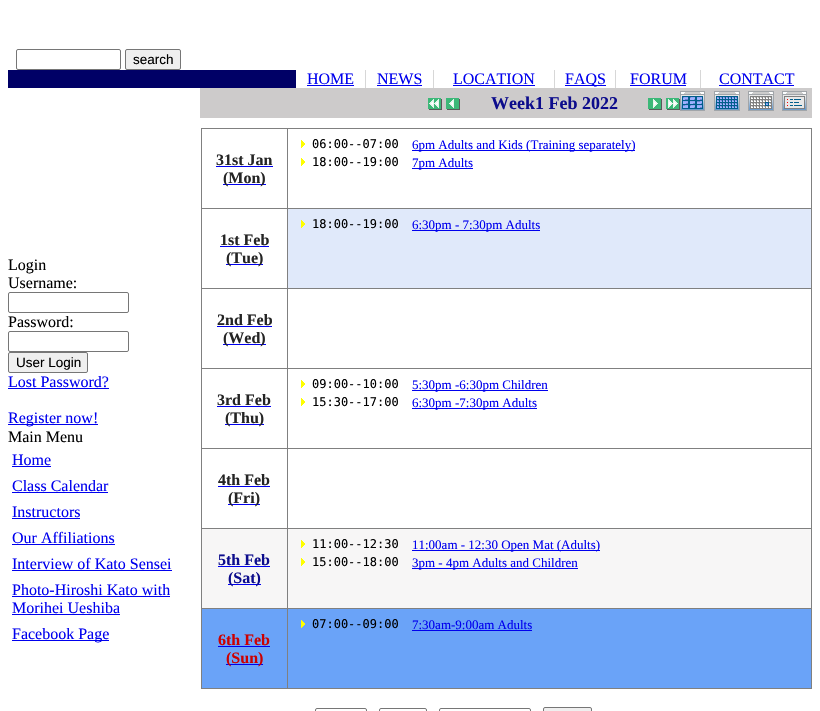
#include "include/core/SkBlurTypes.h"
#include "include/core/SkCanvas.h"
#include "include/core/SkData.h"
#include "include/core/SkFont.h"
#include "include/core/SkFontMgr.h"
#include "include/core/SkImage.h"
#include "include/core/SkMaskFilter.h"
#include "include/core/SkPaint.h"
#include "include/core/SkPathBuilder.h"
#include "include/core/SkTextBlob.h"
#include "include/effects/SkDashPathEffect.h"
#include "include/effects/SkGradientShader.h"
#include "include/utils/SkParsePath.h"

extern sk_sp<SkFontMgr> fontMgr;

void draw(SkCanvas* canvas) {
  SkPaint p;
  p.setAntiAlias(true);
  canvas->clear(SK_ColorWHITE);
  p.setStyle(SkPaint::kStroke_Style);
  p.setStrokeWidth(1);
  p.setColor(SkColorSetRGB(118, 118, 118));
  canvas->drawRoundRect(SkRect::MakeLTRB(16.5f, 49.5f, 120.5f, 69.5f), 1.5f, 1.5f, p);
  p.setStyle(SkPaint::kFill_Style);
  p.setColor(SkColorSetRGB(239, 239, 239));
  canvas->drawRoundRect(SkRect::MakeLTRB(125.5f, 49.5f, 180.5f, 69.5f), 1.5f, 1.5f, p);
  p.setStyle(SkPaint::kStroke_Style);
  p.setColor(SkColorSetRGB(118, 118, 118));
  canvas->drawRoundRect(SkRect::MakeLTRB(125.5f, 49.5f, 180.5f, 69.5f), 1.5f, 1.5f, p);
  p.setStyle(SkPaint::kFill_Style);
  p.setColor(SkColorSetRGB(0, 0, 102));
  canvas->drawRect(SkRect::MakeLTRB(8, 70, 296, 88), p);
  p.setColor(SkColorSetRGB(0, 0, 238));
  canvas->drawRect(SkRect::MakeLTRB(307, 85, 354, 86), p);
  p.setColor(SkColorSetRGB(215, 215, 215));
  canvas->drawRect(SkRect::MakeLTRB(365, 70, 366, 88), p);
  p.setColor(SkColorSetRGB(0, 0, 238));
  canvas->drawRect(SkRect::MakeLTRB(377, 85, 422, 86), p);
  p.setColor(SkColorSetRGB(215, 215, 215));
  canvas->drawRect(SkRect::MakeLTRB(433, 70, 434, 88), p);
  p.setColor(SkColorSetRGB(0, 0, 238));
  canvas->drawRect(SkRect::MakeLTRB(453, 85, 535, 86), p);
  p.setColor(SkColorSetRGB(215, 215, 215));
  canvas->drawRect(SkRect::MakeLTRB(554, 70, 555, 88), p);
  p.setColor(SkColorSetRGB(0, 0, 238));
  canvas->drawRect(SkRect::MakeLTRB(565, 85, 606, 86), p);
  p.setColor(SkColorSetRGB(215, 215, 215));
  canvas->drawRect(SkRect::MakeLTRB(615, 70, 616, 88), p);
  p.setColor(SkColorSetRGB(0, 0, 238));
  canvas->drawRect(SkRect::MakeLTRB(630, 85, 686, 86), p);
  p.setColor(SkColorSetRGB(215, 215, 215));
  canvas->drawRect(SkRect::MakeLTRB(700, 70, 701, 88), p);
  p.setColor(SkColorSetRGB(0, 0, 238));
  canvas->drawRect(SkRect::MakeLTRB(719, 85, 794, 86), p);
  p.setStyle(SkPaint::kStroke_Style);
  p.setColor(SkColorSetRGB(118, 118, 118));
  canvas->drawRoundRect(SkRect::MakeLTRB(8.5f, 292.5f, 128.5f, 312.5f), 1.5f, 1.5f, p);
  canvas->drawRoundRect(SkRect::MakeLTRB(8.5f, 331.5f, 128.5f, 351.5f), 1.5f, 1.5f, p);
  p.setStyle(SkPaint::kFill_Style);
  p.setColor(SkColorSetRGB(239, 239, 239));
  canvas->drawRoundRect(SkRect::MakeLTRB(8.5f, 352.5f, 87.5f, 372.5f), 1.5f, 1.5f, p);
  p.setStyle(SkPaint::kStroke_Style);
  p.setColor(SkColorSetRGB(118, 118, 118));
  canvas->drawRoundRect(SkRect::MakeLTRB(8.5f, 352.5f, 87.5f, 372.5f), 1.5f, 1.5f, p);
  p.setStyle(SkPaint::kFill_Style);
  p.setColor(SkColorSetRGB(0, 0, 238));
  canvas->drawRect(SkRect::MakeLTRB(8, 388, 109, 389), p);
  canvas->drawRect(SkRect::MakeLTRB(8, 424, 98, 425), p);
  canvas->drawRect(SkRect::MakeLTRB(12, 466, 51, 467), p);
  canvas->drawRect(SkRect::MakeLTRB(12, 492, 108, 493), p);
  canvas->drawRect(SkRect::MakeLTRB(12, 518, 80, 519), p);
  canvas->drawRect(SkRect::MakeLTRB(12, 544, 115, 545), p);
  canvas->drawRect(SkRect::MakeLTRB(12, 570, 172, 571), p);
  canvas->drawRect(SkRect::MakeLTRB(12, 596, 170, 597), p);
  canvas->drawRect(SkRect::MakeLTRB(12, 614, 120, 615), p);
  canvas->drawRect(SkRect::MakeLTRB(12, 640, 109, 641), p);
  p.setColor(SkColorSetRGB(205, 203, 203));
  canvas->drawRect(SkRect::MakeLTRB(200, 88, 812, 118), p);
  canvas->drawImageRect(SkImages::DeferredFromEncodedData(SkData::MakeFromFileName("images/1.png")), SkRect::MakeLTRB(428, 98, 442, 110), SkSamplingOptions());
  canvas->drawImageRect(SkImages::DeferredFromEncodedData(SkData::MakeFromFileName("images/2.png")), SkRect::MakeLTRB(446, 98, 460, 110), SkSamplingOptions());
  canvas->drawImageRect(SkImages::DeferredFromEncodedData(SkData::MakeFromFileName("images/3.png")), SkRect::MakeLTRB(648, 98, 662, 110), SkSamplingOptions());
  canvas->drawImageRect(SkImages::DeferredFromEncodedData(SkData::MakeFromFileName("images/4.png")), SkRect::MakeLTRB(666, 98, 680, 110), SkSamplingOptions());
  canvas->drawImageRect(SkImages::DeferredFromEncodedData(SkData::MakeFromFileName("images/5.png")), SkRect::MakeLTRB(680, 91, 705, 111), SkSamplingOptions());
  canvas->drawImageRect(SkImages::DeferredFromEncodedData(SkData::MakeFromFileName("images/6.png")), SkRect::MakeLTRB(714, 91, 740, 111), SkSamplingOptions());
  canvas->drawImageRect(SkImages::DeferredFromEncodedData(SkData::MakeFromFileName("images/7.png")), SkRect::MakeLTRB(748, 91, 774, 111), SkSamplingOptions());
  canvas->drawImageRect(SkImages::DeferredFromEncodedData(SkData::MakeFromFileName("images/8.png")), SkRect::MakeLTRB(782, 91, 807, 111), SkSamplingOptions());
  p.setColor(SkColorSetRGB(128, 128, 128));
  canvas->drawRect(SkRect::MakeLTRB(287, 128, 812, 129), p);
  canvas->drawRect(SkRect::MakeLTRB(287, 208, 812, 209), p);
  canvas->drawRect(SkRect::MakeLTRB(287, 288, 812, 289), p);
  canvas->drawRect(SkRect::MakeLTRB(287, 368, 812, 369), p);
  canvas->drawRect(SkRect::MakeLTRB(287, 448, 812, 449), p);
  canvas->drawRect(SkRect::MakeLTRB(287, 528, 812, 529), p);
  canvas->drawRect(SkRect::MakeLTRB(287, 608, 812, 609), p);
  canvas->drawRect(SkRect::MakeLTRB(811, 608, 812, 689), p);
  canvas->drawRect(SkRect::MakeLTRB(287, 688, 812, 689), p);
  canvas->drawRect(SkRect::MakeLTRB(287, 608, 288, 689), p);
  canvas->drawRect(SkRect::MakeLTRB(201, 608, 288, 609), p);
  canvas->drawRect(SkRect::MakeLTRB(287, 528, 288, 609), p);
  canvas->drawRect(SkRect::MakeLTRB(201, 528, 288, 529), p);
  canvas->drawRect(SkRect::MakeLTRB(287, 448, 288, 529), p);
  canvas->drawRect(SkRect::MakeLTRB(201, 448, 288, 449), p);
  canvas->drawRect(SkRect::MakeLTRB(287, 368, 288, 449), p);
  canvas->drawRect(SkRect::MakeLTRB(201, 368, 288, 369), p);
  canvas->drawRect(SkRect::MakeLTRB(287, 288, 288, 369), p);
  canvas->drawRect(SkRect::MakeLTRB(201, 288, 288, 289), p);
  canvas->drawRect(SkRect::MakeLTRB(287, 208, 288, 289), p);
  canvas->drawRect(SkRect::MakeLTRB(201, 208, 288, 209), p);
  canvas->drawRect(SkRect::MakeLTRB(287, 128, 288, 209), p);
  canvas->drawRect(SkRect::MakeLTRB(201, 128, 288, 129), p);
  canvas->drawRect(SkRect::MakeLTRB(201, 688, 288, 689), p);
  canvas->drawRect(SkRect::MakeLTRB(201, 608, 202, 689), p);
  canvas->drawRect(SkRect::MakeLTRB(201, 528, 202, 609), p);
  canvas->drawRect(SkRect::MakeLTRB(201, 448, 202, 529), p);
  canvas->drawRect(SkRect::MakeLTRB(201, 368, 202, 449), p);
  canvas->drawRect(SkRect::MakeLTRB(201, 288, 202, 369), p);
  canvas->drawRect(SkRect::MakeLTRB(201, 208, 202, 289), p);
  canvas->drawRect(SkRect::MakeLTRB(201, 128, 202, 209), p);
  p.setColor(SkColorSetRGB(0, 0, 238));
  canvas->drawRect(SkRect::MakeLTRB(216, 166, 273, 167), p);
  canvas->drawRect(SkRect::MakeLTRB(223, 184, 266, 185), p);
  p.setColor(SkColorSetRGB(128, 128, 128));
  canvas->drawRect(SkRect::MakeLTRB(811, 528, 812, 609), p);
  canvas->drawRect(SkRect::MakeLTRB(811, 448, 812, 529), p);
  canvas->drawRect(SkRect::MakeLTRB(811, 368, 812, 449), p);
  canvas->drawRect(SkRect::MakeLTRB(811, 288, 812, 369), p);
  canvas->drawRect(SkRect::MakeLTRB(811, 208, 812, 289), p);
  canvas->drawRect(SkRect::MakeLTRB(811, 128, 812, 209), p);
  canvas->drawImageRect(SkImages::DeferredFromEncodedData(SkData::MakeFromFileName("images/9.png")), SkRect::MakeLTRB(301, 140, 305, 148), SkSamplingOptions());
  p.setColor(SkColorSetRGB(0, 0, 238));
  canvas->drawRect(SkRect::MakeLTRB(412, 150, 635, 151), p);
  canvas->drawImageRect(SkImages::DeferredFromEncodedData(SkData::MakeFromFileName("images/9.png")), SkRect::MakeLTRB(301, 158, 305, 166), SkSamplingOptions());
  canvas->drawRect(SkRect::MakeLTRB(412, 168, 473, 169), p);
  p.setColor(SkColorSetRGB(224, 233, 250));
  canvas->drawRect(SkRect::MakeLTRB(288, 209, 811, 288), p);
  canvas->drawImageRect(SkImages::DeferredFromEncodedData(SkData::MakeFromFileName("images/10.png")), SkRect::MakeLTRB(301, 220, 305, 228), SkSamplingOptions());
  p.setColor(SkColorSetRGB(0, 0, 238));
  canvas->drawRect(SkRect::MakeLTRB(412, 230, 540, 231), p);
  canvas->drawRect(SkRect::MakeLTRB(220, 246, 269, 247), p);
  canvas->drawRect(SkRect::MakeLTRB(226, 264, 263, 265), p);
  canvas->drawRect(SkRect::MakeLTRB(217, 326, 272, 327), p);
  canvas->drawRect(SkRect::MakeLTRB(223, 344, 266, 345), p);
  canvas->drawRect(SkRect::MakeLTRB(217, 406, 271, 407), p);
  canvas->drawRect(SkRect::MakeLTRB(225, 424, 264, 425), p);
  canvas->drawImageRect(SkImages::DeferredFromEncodedData(SkData::MakeFromFileName("images/9.png")), SkRect::MakeLTRB(301, 380, 305, 388), SkSamplingOptions());
  canvas->drawRect(SkRect::MakeLTRB(412, 390, 548, 391), p);
  canvas->drawImageRect(SkImages::DeferredFromEncodedData(SkData::MakeFromFileName("images/9.png")), SkRect::MakeLTRB(301, 398, 305, 406), SkSamplingOptions());
  canvas->drawRect(SkRect::MakeLTRB(412, 408, 537, 409), p);
  canvas->drawRect(SkRect::MakeLTRB(218, 486, 270, 487), p);
  canvas->drawRect(SkRect::MakeLTRB(228, 504, 260, 505), p);
  p.setColor(SkColorSetRGB(247, 246, 246));
  canvas->drawRect(SkRect::MakeLTRB(202, 529, 287, 608), p);
  p.setColor(SkColorSetRGB(0, 0, 238));
  canvas->drawRect(SkRect::MakeLTRB(218, 566, 270, 567), p);
  canvas->drawRect(SkRect::MakeLTRB(228, 584, 261, 585), p);
  p.setColor(SkColorSetRGB(247, 246, 246));
  canvas->drawRect(SkRect::MakeLTRB(288, 529, 811, 608), p);
  canvas->drawImageRect(SkImages::DeferredFromEncodedData(SkData::MakeFromFileName("images/11.png")), SkRect::MakeLTRB(301, 540, 305, 548), SkSamplingOptions());
  p.setColor(SkColorSetRGB(0, 0, 238));
  canvas->drawRect(SkRect::MakeLTRB(412, 550, 600, 551), p);
  canvas->drawImageRect(SkImages::DeferredFromEncodedData(SkData::MakeFromFileName("images/11.png")), SkRect::MakeLTRB(301, 558, 305, 566), SkSamplingOptions());
  canvas->drawRect(SkRect::MakeLTRB(412, 568, 578, 569), p);
  p.setColor(SkColorSetRGB(106, 163, 248));
  canvas->drawRect(SkRect::MakeLTRB(288, 609, 811, 688), p);
  canvas->drawImageRect(SkImages::DeferredFromEncodedData(SkData::MakeFromFileName("images/12.png")), SkRect::MakeLTRB(301, 620, 305, 628), SkSamplingOptions());
  p.setColor(SkColorSetRGB(0, 0, 238));
  canvas->drawRect(SkRect::MakeLTRB(412, 630, 532, 631), p);
  p.setColor(SkColorSetRGB(106, 163, 248));
  canvas->drawRect(SkRect::MakeLTRB(202, 609, 287, 688), p);
  p.setColor(SkColorSetRGB(0, 0, 238));
  canvas->drawRect(SkRect::MakeLTRB(218, 646, 270, 647), p);
  canvas->drawRect(SkRect::MakeLTRB(226, 664, 263, 665), p);
  p.setStyle(SkPaint::kStroke_Style);
  p.setColor(SkColorSetRGB(118, 118, 118));
  canvas->drawRoundRect(SkRect::MakeLTRB(315.5f, 708.5f, 366.5f, 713.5f), 1.5f, 1.5f, p);
  canvas->drawRoundRect(SkRect::MakeLTRB(379.5f, 708.5f, 426.5f, 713.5f), 1.5f, 1.5f, p);
  canvas->drawRoundRect(SkRect::MakeLTRB(439.5f, 708.5f, 530.5f, 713.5f), 1.5f, 1.5f, p);
  p.setStyle(SkPaint::kFill_Style);
  p.setColor(SkColorSetRGB(239, 239, 239));
  canvas->drawRoundRect(SkRect::MakeLTRB(543.5f, 707.5f, 591.5f, 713.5f), 1.5f, 1.5f, p);
  p.setStyle(SkPaint::kStroke_Style);
  p.setColor(SkColorSetRGB(118, 118, 118));
  canvas->drawRoundRect(SkRect::MakeLTRB(543.5f, 707.5f, 591.5f, 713.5f), 1.5f, 1.5f, p);
  SkFont font1(fontMgr->matchFamilyStyle("Liberation Sans", SkFontStyle::Normal()), 13.5f);
  font1.setSubpixel(true);
  p.setStyle(SkPaint::kFill_Style);
  p.setColor(SK_ColorBLACK);
  canvas->drawString("search", 133, 64, font1, p);
  SkFont font2(fontMgr->matchFamilyStyle("Liberation Serif", SkFontStyle::Normal()), 16);
  font2.setSubpixel(true);
  p.setColor(SkColorSetRGB(0, 0, 238));
  canvas->drawString("HOME", 307, 84, font2, p);
  canvas->drawString("NEWS", 377, 84, font2, p);
  canvas->drawString("LOCATION", 453, 84, font2, p);
  canvas->drawString("FAQS", 565, 84, font2, p);
  canvas->drawString("FORUM", 630, 84, font2, p);
  canvas->drawString("CONTACT", 719, 84, font2, p);
  p.setColor(SK_ColorBLACK);
  canvas->drawString("Login", 8, 270, font2, p);
  canvas->drawString("Username:", 8, 288, font2, p);
  canvas->drawString("Password:", 8, 327, font2, p);
  canvas->drawString("User Login", 16, 367, font1, p);
  p.setColor(SkColorSetRGB(0, 0, 238));
  canvas->drawString("Lost Password?", 8, 387, font2, p);
  canvas->drawString("Register now!", 8, 423, font2, p);
  p.setColor(SK_ColorBLACK);
  canvas->drawString("Main Menu", 8, 442, font2, p);
  p.setColor(SkColorSetRGB(0, 0, 238));
  canvas->drawString("Home", 12, 465, font2, p);
  canvas->drawString("Class Calendar", 12, 491, font2, p);
  canvas->drawString("Instructors", 12, 517, font2, p);
  canvas->drawString("Our Affiliations", 12, 543, font2, p);
  canvas->drawString("Interview of Kato Sensei", 12, 569, font2, p);
  canvas->drawString("Photo-Hiroshi Kato with", 12, 595, font2, p);
  canvas->drawString("Morihei Ueshiba", 12, 613, font2, p);
  canvas->drawString("Facebook Page", 12, 639, font2, p);
  SkFont font3(fontMgr->matchFamilyStyle("Liberation Serif", SkFontStyle::Bold()), 18);
  font3.setSubpixel(true);
  p.setColor(SkColorSetRGB(12, 12, 140));
  canvas->drawString("Week1 Feb 2022", 491, 109, font3, p);
  SkFont font4(fontMgr->matchFamilyStyle("Liberation Serif", SkFontStyle::Bold()), 16);
  font4.setSubpixel(true);
  p.setColor(SkColorSetRGB(36, 36, 36));
  canvas->drawString("31st Jan", 216, 165, font4, p);
  canvas->drawString("(Mon)", 223, 183, font4, p);
  SkFont font5(fontMgr->matchFamilyStyle("DejaVu Sans Mono", SkFontStyle::Normal()), 12);
  font5.setSubpixel(true);
  p.setColor(SK_ColorBLACK);
  canvas->drawString("06:00--07:00", 312, 148, font5, p);
  SkFont font6(fontMgr->matchFamilyStyle("Liberation Serif", SkFontStyle::Normal()), 13);
  font6.setSubpixel(true);
  p.setColor(SkColorSetRGB(0, 0, 238));
  canvas->drawString("6pm Adults and Kids (Training separately)", 412, 149, font6, p);
  p.setColor(SK_ColorBLACK);
  canvas->drawString("18:00--19:00", 312, 166, font5, p);
  p.setColor(SkColorSetRGB(0, 0, 238));
  canvas->drawString("7pm Adults", 412, 167, font6, p);
  p.setColor(SK_ColorBLACK);
  canvas->drawString("18:00--19:00", 312, 228, font5, p);
  p.setColor(SkColorSetRGB(0, 0, 238));
  canvas->drawString("6:30pm - 7:30pm Adults", 412, 229, font6, p);
  p.setColor(SkColorSetRGB(36, 36, 36));
  canvas->drawString("1st Feb", 220, 245, font4, p);
  canvas->drawString("(Tue)", 226, 263, font4, p);
  canvas->drawString("2nd Feb", 217, 325, font4, p);
  canvas->drawString("(Wed)", 223, 343, font4, p);
  canvas->drawString("3rd Feb", 217, 405, font4, p);
  canvas->drawString("(Thu)", 225, 423, font4, p);
  p.setColor(SK_ColorBLACK);
  canvas->drawString("09:00--10:00", 312, 388, font5, p);
  p.setColor(SkColorSetRGB(0, 0, 238));
  canvas->drawString("5:30pm -6:30pm Children", 412, 389, font6, p);
  p.setColor(SK_ColorBLACK);
  canvas->drawString("15:30--17:00", 312, 406, font5, p);
  p.setColor(SkColorSetRGB(0, 0, 238));
  canvas->drawString("6:30pm -7:30pm Adults", 412, 407, font6, p);
  p.setColor(SkColorSetRGB(36, 36, 36));
  canvas->drawString("4th Feb", 218, 485, font4, p);
  canvas->drawString("(Fri)", 228, 503, font4, p);
  p.setColor(SkColorSetRGB(12, 12, 140));
  canvas->drawString("5th Feb", 218, 565, font4, p);
  canvas->drawString("(Sat)", 228, 583, font4, p);
  p.setColor(SK_ColorBLACK);
  canvas->drawString("11:00--12:30", 312, 548, font5, p);
  p.setColor(SkColorSetRGB(0, 0, 238));
  canvas->drawString("11:00am - 12:30 Open Mat (Adults)", 412, 549, font6, p);
  p.setColor(SK_ColorBLACK);
  canvas->drawString("15:00--18:00", 312, 566, font5, p);
  p.setColor(SkColorSetRGB(0, 0, 238));
  canvas->drawString("3pm - 4pm Adults and Children", 412, 567, font6, p);
  p.setColor(SK_ColorBLACK);
  canvas->drawString("07:00--09:00", 312, 628, font5, p);
  p.setColor(SkColorSetRGB(0, 0, 238));
  canvas->drawString("7:30am-9:00am Adults", 412, 629, font6, p);
  p.setColor(SkColorSetRGB(204, 0, 0));
  canvas->drawString("6th Feb", 218, 645, font4, p);
  canvas->drawString("(Sun)", 226, 663, font4, p);
}
